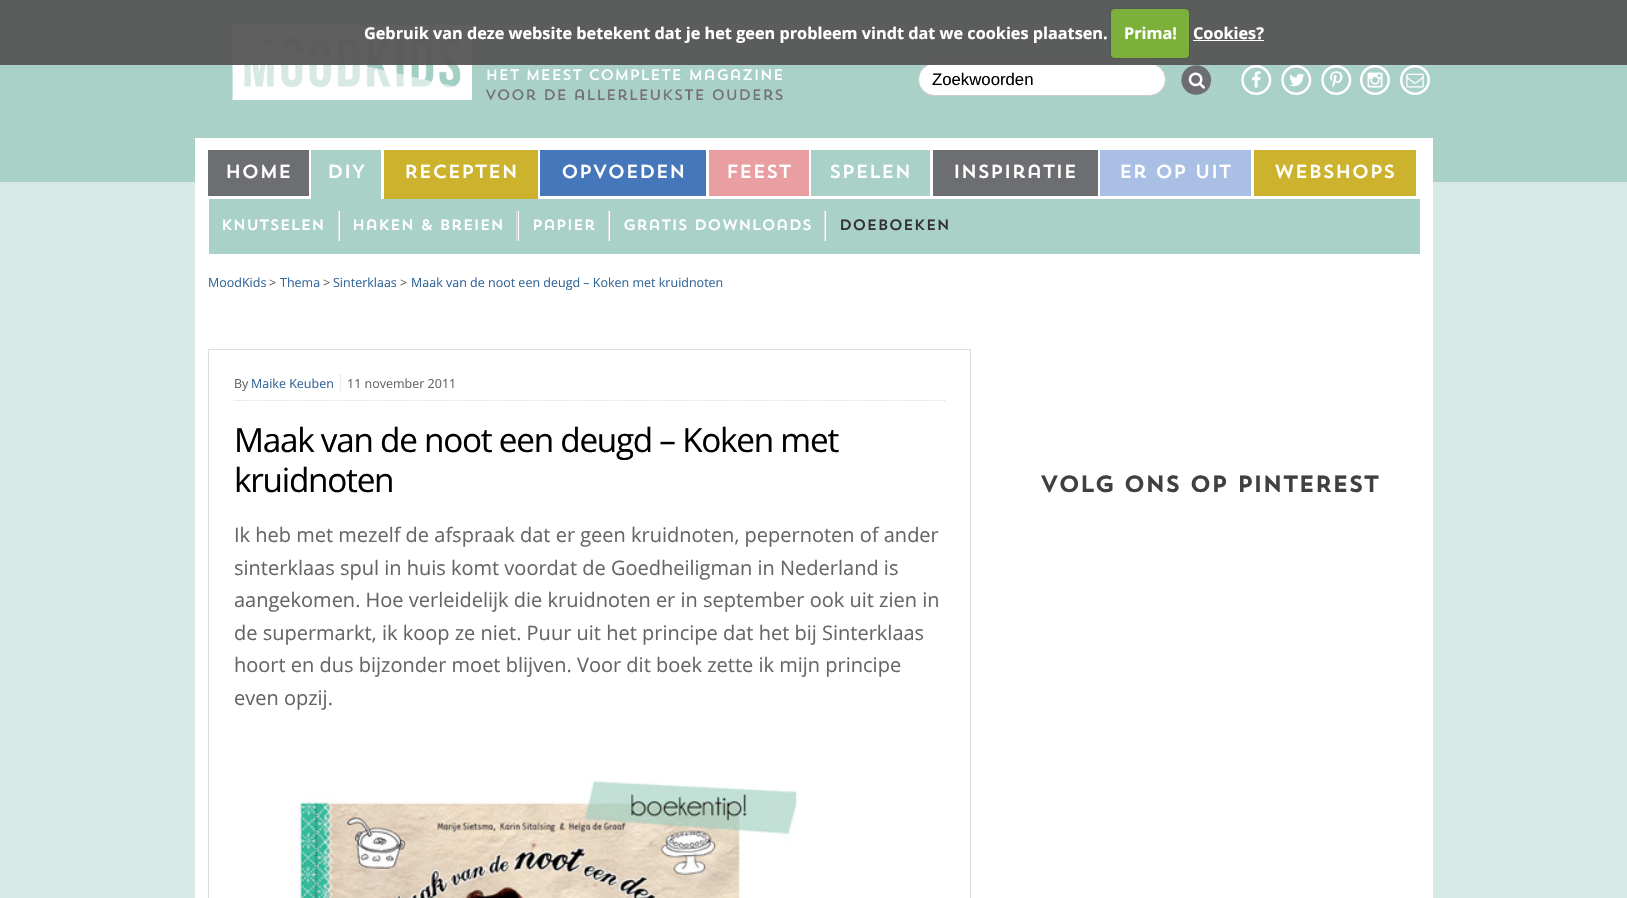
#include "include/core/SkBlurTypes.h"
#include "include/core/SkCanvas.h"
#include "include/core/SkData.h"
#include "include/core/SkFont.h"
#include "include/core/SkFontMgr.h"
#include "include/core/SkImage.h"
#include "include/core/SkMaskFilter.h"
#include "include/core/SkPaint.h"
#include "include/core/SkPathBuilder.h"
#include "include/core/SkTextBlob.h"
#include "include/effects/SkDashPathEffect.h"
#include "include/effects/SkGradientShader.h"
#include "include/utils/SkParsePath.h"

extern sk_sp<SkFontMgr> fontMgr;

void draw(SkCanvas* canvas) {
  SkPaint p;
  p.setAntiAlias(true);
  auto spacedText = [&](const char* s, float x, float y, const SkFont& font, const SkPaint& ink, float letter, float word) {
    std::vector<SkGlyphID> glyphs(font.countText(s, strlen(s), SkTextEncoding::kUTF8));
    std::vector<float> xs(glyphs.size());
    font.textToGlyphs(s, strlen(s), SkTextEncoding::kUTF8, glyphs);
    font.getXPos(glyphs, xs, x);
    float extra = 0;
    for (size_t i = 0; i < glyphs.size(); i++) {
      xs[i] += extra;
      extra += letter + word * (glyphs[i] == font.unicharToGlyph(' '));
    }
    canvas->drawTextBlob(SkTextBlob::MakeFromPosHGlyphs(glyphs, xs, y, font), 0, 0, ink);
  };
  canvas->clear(SkColorSetRGB(214, 233, 229));
  p.setColor(SkColorSetRGB(169, 209, 199));
  canvas->drawRect(SkRect::MakeLTRB(0, 0, 1627, 182), p);
  canvas->drawImageRect(SkImages::DeferredFromEncodedData(SkData::MakeFromFileName("images/1.png")), SkRect::MakeLTRB(232, 25, 783, 100), SkSamplingOptions());
  p.setColor(SK_ColorWHITE);
  canvas->drawRoundRect(SkRect::MakeLTRB(918.5f, 63.5f, 1165.5f, 95.5f), 16, 16, p);
  p.setStyle(SkPaint::kStroke_Style);
  p.setStrokeWidth(1);
  p.setColor(SkColorSetRGB(204, 204, 204));
  canvas->drawRoundRect(SkRect::MakeLTRB(918.5f, 63.5f, 1165.5f, 95.5f), 16, 16, p);
  p.setStyle(SkPaint::kFill_Style);
  p.setColor(SkColorSetARGB(242, 86, 86, 86));
  canvas->drawRect(SkRect::MakeLTRB(0, 0, 1627, 65), p);
  p.setColor(SkColorSetARGB(64, 0, 0, 0));
  p.setMaskFilter(SkMaskFilter::MakeBlur(kNormal_SkBlurStyle, 1));
  canvas->drawRoundRect(SkRect::MakeLTRB(1111, 9, 1189, 58), 4, 4, p);
  p.setMaskFilter(nullptr);
  p.setColor(SkColorSetRGB(125, 175, 59));
  canvas->drawRoundRect(SkRect::MakeLTRB(1111, 9, 1189, 58), 4, 4, p);
  p.setColor(SK_ColorWHITE);
  canvas->drawRect(SkRect::MakeLTRB(1193, 40, 1264, 41), p);
  p.setColor(SkColorSetRGB(109, 110, 113));
  canvas->drawPath(SkPathBuilder().moveTo(1209, 72.5f).cubicTo(1210.5f, 75, 1211.5f, 78, 1211, 81).cubicTo(1210.5f, 95.5f, 1190.5f, 100, 1183.5f, 87.5f).cubicTo(1182, 85, 1181, 82, 1181.5f, 79).cubicTo(1182, 64.5f, 1202, 60, 1209, 72.5f).close().detach(), p);
  canvas->drawImageRect(SkImages::DeferredFromEncodedData(SkData::MakeFromFileName("images/2.png")), SkRect::MakeLTRB(1188, 72, 1205, 89), SkSamplingOptions());
  canvas->drawImageRect(SkImages::DeferredFromEncodedData(SkData::MakeFromFileName("images/3.png")), SkRect::MakeLTRB(1241, 65, 1272, 95), SkSamplingOptions());
  canvas->drawImageRect(SkImages::DeferredFromEncodedData(SkData::MakeFromFileName("images/4.png")), SkRect::MakeLTRB(1252, 71, 1261, 88), SkSamplingOptions());
  canvas->drawImageRect(SkImages::DeferredFromEncodedData(SkData::MakeFromFileName("images/3.png")), SkRect::MakeLTRB(1281, 65, 1312, 95), SkSamplingOptions());
  canvas->drawImageRect(SkImages::DeferredFromEncodedData(SkData::MakeFromFileName("images/5.png")), SkRect::MakeLTRB(1289, 73, 1305, 87), SkSamplingOptions());
  canvas->drawImageRect(SkImages::DeferredFromEncodedData(SkData::MakeFromFileName("images/3.png")), SkRect::MakeLTRB(1321, 65, 1352, 95), SkSamplingOptions());
  canvas->drawImageRect(SkImages::DeferredFromEncodedData(SkData::MakeFromFileName("images/6.png")), SkRect::MakeLTRB(1330, 71, 1343, 88), SkSamplingOptions());
  canvas->drawImageRect(SkImages::DeferredFromEncodedData(SkData::MakeFromFileName("images/7.png")), SkRect::MakeLTRB(1360, 65, 1390, 95), SkSamplingOptions());
  canvas->drawImageRect(SkImages::DeferredFromEncodedData(SkData::MakeFromFileName("images/8.png")), SkRect::MakeLTRB(1367, 72, 1383, 88), SkSamplingOptions());
  canvas->drawImageRect(SkImages::DeferredFromEncodedData(SkData::MakeFromFileName("images/7.png")), SkRect::MakeLTRB(1400, 65, 1430, 95), SkSamplingOptions());
  canvas->drawImageRect(SkImages::DeferredFromEncodedData(SkData::MakeFromFileName("images/9.png")), SkRect::MakeLTRB(1406, 73, 1424, 88), SkSamplingOptions());
  p.setColor(SK_ColorWHITE);
  canvas->drawRect(SkRect::MakeLTRB(195, 138, 1433, 199), p);
  p.setColor(SkColorSetRGB(109, 110, 113));
  canvas->drawRect(SkRect::MakeLTRB(208, 150, 309, 196), p);
  p.setColor(SkColorSetRGB(169, 209, 199));
  canvas->drawRect(SkRect::MakeLTRB(311, 150, 381, 199), p);
  p.setColor(SkColorSetRGB(204, 178, 45));
  canvas->drawRect(SkRect::MakeLTRB(384, 150, 538, 199), p);
  p.setColor(SkColorSetRGB(70, 119, 187));
  canvas->drawRect(SkRect::MakeLTRB(540, 150, 706, 196), p);
  p.setColor(SkColorSetRGB(233, 159, 162));
  canvas->drawRect(SkRect::MakeLTRB(709, 150, 809, 196), p);
  p.setColor(SkColorSetRGB(169, 209, 199));
  canvas->drawRect(SkRect::MakeLTRB(811, 150, 930, 196), p);
  p.setColor(SkColorSetRGB(109, 110, 113));
  canvas->drawRect(SkRect::MakeLTRB(933, 150, 1098, 196), p);
  p.setColor(SkColorSetRGB(169, 191, 227));
  canvas->drawRect(SkRect::MakeLTRB(1100, 150, 1251, 196), p);
  p.setColor(SkColorSetRGB(204, 178, 45));
  canvas->drawRect(SkRect::MakeLTRB(1254, 150, 1416, 196), p);
  p.setColor(SkColorSetRGB(169, 209, 199));
  canvas->drawRect(SkRect::MakeLTRB(209, 199, 1420, 254), p);
  p.setColor(SK_ColorWHITE);
  canvas->drawRect(SkRect::MakeLTRB(1420, 199, 1433, 254), p);
  canvas->drawRect(SkRect::MakeLTRB(195, 199, 209, 254), p);
  canvas->drawRect(SkRect::MakeLTRB(339, 211, 340, 241), p);
  p.setColor(SkColorSetRGB(221, 221, 221));
  canvas->drawRect(SkRect::MakeLTRB(338, 211, 339, 241), p);
  p.setColor(SK_ColorWHITE);
  canvas->drawRect(SkRect::MakeLTRB(518, 211, 519, 241), p);
  p.setColor(SkColorSetRGB(221, 221, 221));
  canvas->drawRect(SkRect::MakeLTRB(516, 211, 517, 241), p);
  p.setColor(SK_ColorWHITE);
  canvas->drawRect(SkRect::MakeLTRB(609, 211, 610, 241), p);
  p.setColor(SkColorSetRGB(221, 221, 221));
  canvas->drawRect(SkRect::MakeLTRB(608, 211, 609, 241), p);
  p.setColor(SK_ColorWHITE);
  canvas->drawRect(SkRect::MakeLTRB(825, 211, 826, 241), p);
  p.setColor(SkColorSetRGB(221, 221, 221));
  canvas->drawRect(SkRect::MakeLTRB(824, 211, 825, 241), p);
  p.setColor(SK_ColorWHITE);
  canvas->drawRect(SkRect::MakeLTRB(195, 254, 1433, 898), p);
  p.setStyle(SkPaint::kStroke_Style);
  p.setColor(SkColorSetRGB(221, 221, 221));
  canvas->drawRect(SkRect::MakeLTRB(208.5f, 349.5f, 970.5f, 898.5f), p);
  p.setStrokeWidth(1.2f);
  p.setPathEffect(SkDashPathEffect::Make({{1.25f, 1.25f}}, 0));
  canvas->drawPath(SkPathBuilder().moveTo(234, 400.5f).lineTo(945, 400.5f).detach(), p);
  p.setPathEffect(nullptr);
  p.setPathEffect(SkDashPathEffect::Make({{1.25f, 1.25f}}, 0));
  canvas->drawPath(SkPathBuilder().moveTo(340.5f, 375).lineTo(340.5f, 392.5f).detach(), p);
  p.setPathEffect(nullptr);
  canvas->drawImageRect(SkImages::DeferredFromEncodedData(SkData::MakeFromFileName("images/10.png")), SkRect::MakeLTRB(294, 781, 797, 898), SkSamplingOptions());
  SkFont font1(fontMgr->matchFamilyStyle("Open Sans", SkFontStyle::Bold()), 16.25f);
  font1.setSubpixel(true);
  p.setStyle(SkPaint::kFill_Style);
  p.setColor(SK_ColorWHITE);
  canvas->drawString("Gebruik van deze website betekent dat je het geen probleem vindt dat we cookies plaatsen.", 364, 39, font1, p);
  canvas->drawString("Prima!", 1124, 39, font1, p);
  canvas->drawString("Cookies?", 1193, 39, font1, p);
  SkFont font2(fontMgr->matchFamilyStyle("Liberation Sans", SkFontStyle::Normal()), 16.75f);
  font2.setSubpixel(true);
  p.setColor(SK_ColorBLACK);
  canvas->drawString("Zoekwoorden", 932, 85, font2, p);
  SkFont font3(fontMgr->matchFamilyStyle("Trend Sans", SkFontStyle(200, SkFontStyle::kNormal_Width, SkFontStyle::kUpright_Slant)), 18.75f);
  font3.setSubpixel(true);
  p.setColor(SK_ColorWHITE);
  canvas->drawString("Home", 225, 178, font3, p);
  canvas->drawString("DIY", 327, 178, font3, p);
  canvas->drawString("Recepten", 404, 178, font3, p);
  canvas->drawString("Opvoeden", 561, 178, font3, p);
  canvas->drawString("Feest", 726, 178, font3, p);
  canvas->drawString("Spelen", 829, 178, font3, p);
  canvas->drawString("Inspiratie", 953, 178, font3, p);
  canvas->drawString("Er Op Uit", 1119, 178, font3, p);
  canvas->drawString("Webshops", 1274, 178, font3, p);
  SkFont font4(fontMgr->matchFamilyStyle("Trend Sans", SkFontStyle(200, SkFontStyle::kNormal_Width, SkFontStyle::kUpright_Slant)), 15);
  font4.setSubpixel(true);
  canvas->drawString("Knutselen", 221, 230, font4, p);
  canvas->drawString("Haken & Breien", 352, 230, font4, p);
  canvas->drawString("Papier", 532, 230, font4, p);
  canvas->drawString("Gratis downloads", 623, 230, font4, p);
  p.setColor(SkColorSetRGB(51, 51, 51));
  canvas->drawString("Doeboeken", 839, 230, font4, p);
  SkFont font5(fontMgr->matchFamilyStyle("Open Sans", SkFontStyle::Normal()), 12.5f);
  font5.setSubpixel(true);
  p.setColor(SkColorSetRGB(51, 102, 153));
  canvas->drawString("MoodKids", 208, 287, font5, p);
  p.setColor(SkColorSetRGB(102, 102, 102));
  canvas->drawString(">", 269, 287, font5, p);
  p.setColor(SkColorSetRGB(51, 102, 153));
  canvas->drawString("Thema", 280, 287, font5, p);
  p.setColor(SkColorSetRGB(102, 102, 102));
  canvas->drawString(">", 323, 287, font5, p);
  p.setColor(SkColorSetRGB(51, 102, 153));
  canvas->drawString("Sinterklaas", 333, 287, font5, p);
  p.setColor(SkColorSetRGB(102, 102, 102));
  canvas->drawString(">", 400, 287, font5, p);
  p.setColor(SkColorSetRGB(51, 102, 153));
  canvas->drawString("Maak van de noot een deugd – Koken met kruidnoten", 411, 287, font5, p);
  p.setColor(SkColorSetRGB(102, 102, 102));
  canvas->drawString("By", 234, 388, font5, p);
  p.setColor(SkColorSetRGB(51, 102, 153));
  canvas->drawString("Maike Keuben", 251, 388, font5, p);
  p.setColor(SkColorSetRGB(102, 102, 102));
  canvas->drawString("11 november 2011", 347, 388, font5, p);
  SkFont font6(fontMgr->matchFamilyStyle("Open Sans", SkFontStyle::Normal()), 33.3f);
  font6.setSubpixel(true);
  p.setColor(SK_ColorBLACK);
  spacedText("Maak van de noot een deugd – Koken met", 234, 452, font6, p, -1.25f, 0);
  spacedText("kruidnoten", 234, 492, font6, p, -1.25f, 0);
  SkFont font7(fontMgr->matchFamilyStyle("Open Sans", SkFontStyle::Normal()), 20);
  font7.setSubpixel(true);
  p.setColor(SkColorSetRGB(102, 102, 102));
  canvas->drawString("Ik heb met mezelf de afspraak dat er geen kruidnoten, pepernoten of ander", 234, 542, font7, p);
  canvas->drawString("sinterklaas spul in huis komt voordat de Goedheiligman in Nederland is", 234, 575, font7, p);
  canvas->drawString("aangekomen. Hoe verleidelijk die kruidnoten er in september ook uit zien in", 234, 607, font7, p);
  canvas->drawString("de supermarkt, ik koop ze niet. Puur uit het principe dat het bij Sinterklaas", 234, 640, font7, p);
  canvas->drawString("hoort en dus bijzonder moet blijven. Voor dit boek zette ik mijn principe", 234, 672, font7, p);
  canvas->drawString("even opzij.", 234, 705, font7, p);
  SkFont font8(fontMgr->matchFamilyStyle("Trend Sans", SkFontStyle::Bold()), 22.5f);
  font8.setSubpixel(true);
  p.setColor(SkColorSetRGB(64, 64, 65));
  canvas->drawString("VOLG ONS OP PINTEREST", 1040, 492, font8, p);
}
